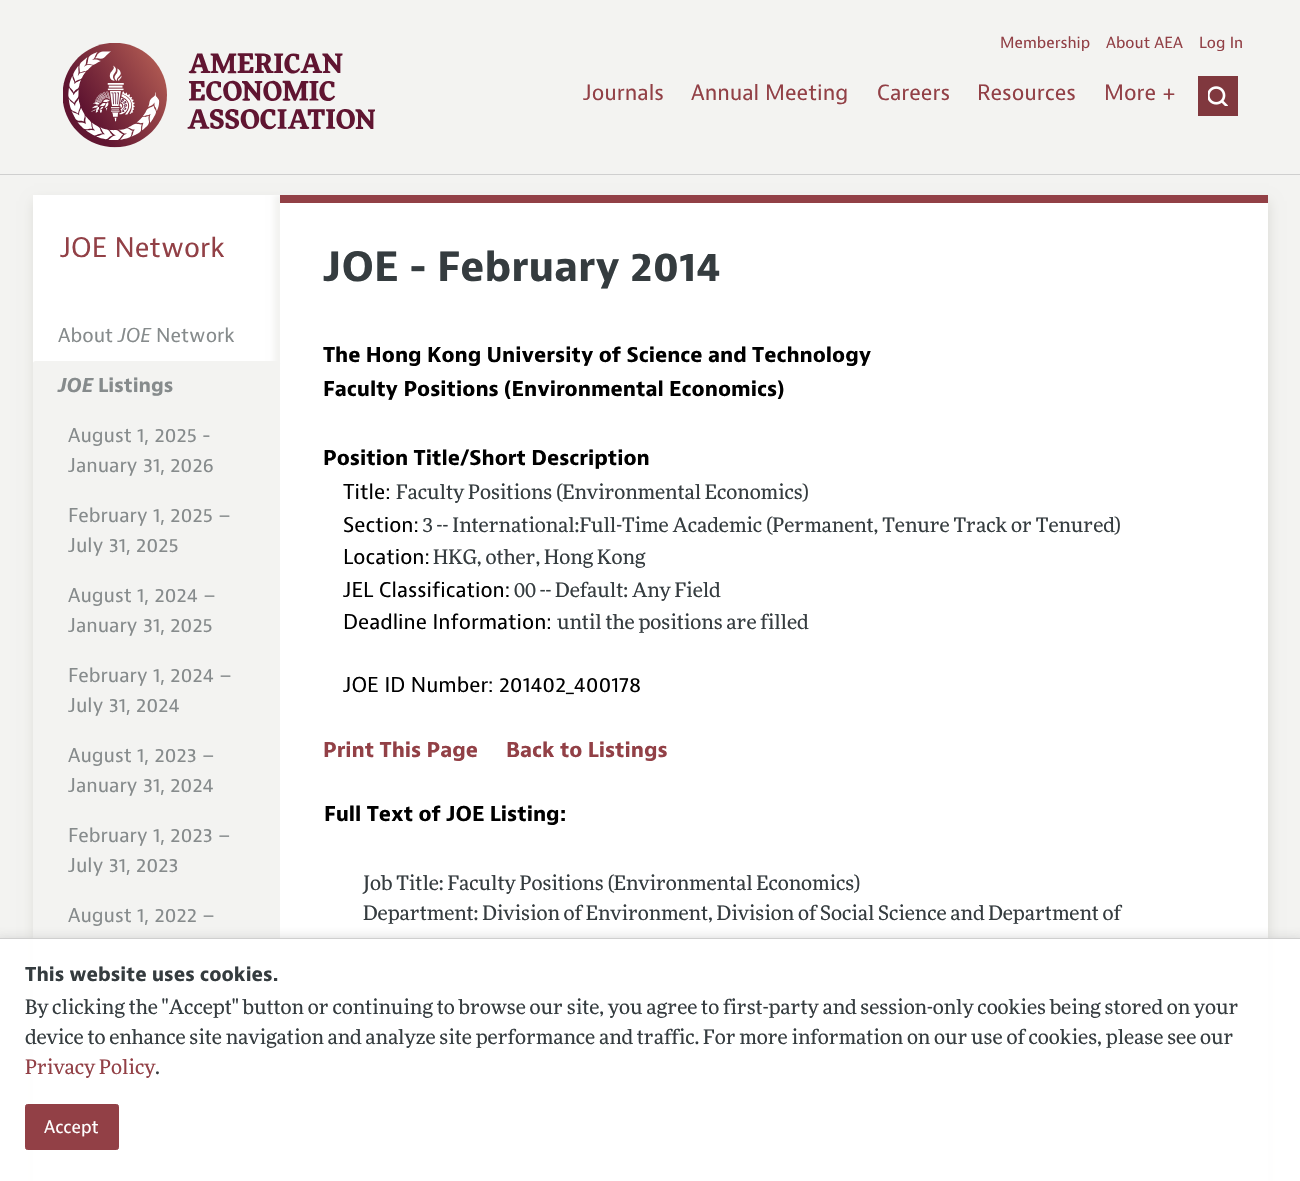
#include "include/core/SkBlurTypes.h"
#include "include/core/SkCanvas.h"
#include "include/core/SkData.h"
#include "include/core/SkFont.h"
#include "include/core/SkFontMgr.h"
#include "include/core/SkImage.h"
#include "include/core/SkMaskFilter.h"
#include "include/core/SkPaint.h"
#include "include/core/SkPathBuilder.h"
#include "include/core/SkTextBlob.h"
#include "include/effects/SkDashPathEffect.h"
#include "include/effects/SkGradientShader.h"
#include "include/utils/SkParsePath.h"

extern sk_sp<SkFontMgr> fontMgr;

void draw(SkCanvas* canvas) {
  SkPaint p;
  p.setAntiAlias(true);
  canvas->clear(SkColorSetRGB(243, 243, 241));
  canvas->drawImageRect(SkImages::DeferredFromEncodedData(SkData::MakeFromFileName("images/1.png")), SkRect::MakeLTRB(63, 43, 375, 148), SkSamplingOptions());
  p.setColor(SkColorSetRGB(128, 56, 62));
  canvas->drawRect(SkRect::MakeLTRB(1198, 76, 1238, 116), p);
  canvas->drawImageRect(SkImages::DeferredFromEncodedData(SkData::MakeFromFileName("images/2.png")), SkRect::MakeLTRB(1208, 86, 1228, 106), SkSamplingOptions());
  p.setColor(SkColorSetRGB(207, 207, 207));
  canvas->drawRect(SkRect::MakeLTRB(0, 174, 1300, 175), p);
  p.setColor(SkColorSetRGB(219, 219, 214));
  p.setMaskFilter(SkMaskFilter::MakeBlur(kNormal_SkBlurStyle, 6));
  canvas->drawRect(SkRect::MakeLTRB(34, 201, 1269, 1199), p);
  p.setMaskFilter(nullptr);
  p.setColor(SK_ColorWHITE);
  canvas->drawRect(SkRect::MakeLTRB(33, 195, 1268, 1181), p);
  canvas->save();
  canvas->clipPath(SkPathBuilder(SkPathFillType::kEvenOdd).moveTo(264, 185).lineTo(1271, 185).lineTo(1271, 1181).lineTo(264, 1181).close().moveTo(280, 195).lineTo(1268, 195).lineTo(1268, 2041).lineTo(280, 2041).close().detach(), true);
  p.setColor(SkColorSetRGB(243, 243, 241));
  p.setMaskFilter(SkMaskFilter::MakeBlur(kNormal_SkBlurStyle, 3));
  canvas->drawRect(SkRect::MakeLTRB(274, 195, 1261, 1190), p);
  p.setMaskFilter(nullptr);
  canvas->restore();
  canvas->drawRoundRect(SkRect::MakeLTRB(33, 361, 280, 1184), 2.5f, 2.5f, p);
  p.setColor(SkColorSetRGB(146, 64, 70));
  canvas->drawRect(SkRect::MakeLTRB(280, 195, 1268, 203), p);
  canvas->save();
  canvas->clipRect(SkRect::MakeLTRB(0, 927, 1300, 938));
  p.setColor(SkColorSetARGB(242, 204, 204, 204));
  p.setMaskFilter(SkMaskFilter::MakeBlur(kNormal_SkBlurStyle, 6));
  canvas->drawRect(SkRect::MakeLTRB(-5, 939, 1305, 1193), p);
  p.setMaskFilter(nullptr);
  canvas->restore();
  p.setColor(SkColorSetARGB(242, 255, 255, 255));
  canvas->drawRect(SkRect::MakeLTRB(0, 939, 1300, 1181), p);
  p.setColor(SkColorSetRGB(207, 207, 207));
  canvas->drawRect(SkRect::MakeLTRB(0, 938, 1300, 939), p);
  p.setColor(SkColorSetRGB(146, 64, 70));
  canvas->drawRoundRect(SkRect::MakeLTRB(25.5f, 1104.5f, 118.5f, 1149.5f), 2, 2, p);
  p.setStyle(SkPaint::kStroke_Style);
  p.setStrokeWidth(1);
  canvas->drawRoundRect(SkRect::MakeLTRB(25.5f, 1104.5f, 118.5f, 1149.5f), 2, 2, p);
  SkFont font1(fontMgr->matchFamilyStyle("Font", SkFontStyle::Normal()), 16);
  font1.setSubpixel(true);
  p.setStyle(SkPaint::kFill_Style);
  canvas->drawString("Membership", 1000, 48, font1, p);
  canvas->drawString("About AEA", 1106, 48, font1, p);
  canvas->drawString("Log In", 1199, 48, font1, p);
  SkFont font2(fontMgr->matchFamilyStyle("Font", SkFontStyle::Normal()), 22);
  font2.setSubpixel(true);
  canvas->drawString("Journals", 583, 100, font2, p);
  canvas->drawString("Annual Meeting", 691, 100, font2, p);
  canvas->drawString("Careers", 877, 100, font2, p);
  canvas->drawString("Resources", 977, 100, font2, p);
  canvas->drawString("More +", 1104, 100, font2, p);
  SkFont font3(fontMgr->matchFamilyStyle("Font", SkFontStyle::Normal()), 28);
  font3.setSubpixel(true);
  canvas->drawString("JOE Network", 60, 257, font3, p);
  SkFont font4(fontMgr->matchFamilyStyle("Font", SkFontStyle::Normal()), 20);
  font4.setSubpixel(true);
  p.setColor(SkColorSetRGB(134, 139, 140));
  canvas->drawString("About", 58, 342, font4, p);
  SkFont font5(fontMgr->matchFamilyStyle("Font", SkFontStyle::Italic()), 20);
  font5.setSubpixel(true);
  canvas->drawString("JOE", 118, 342, font5, p);
  canvas->drawString("Network", 156, 342, font4, p);
  SkFont font6(fontMgr->matchFamilyStyle("Font", SkFontStyle::BoldItalic()), 20);
  font6.setSubpixel(true);
  canvas->drawString("JOE", 58, 392, font6, p);
  SkFont font7(fontMgr->matchFamilyStyle("Font", SkFontStyle::Bold()), 20);
  font7.setSubpixel(true);
  canvas->drawString("Listings", 98, 392, font7, p);
  canvas->drawString("August 1, 2025 -", 68, 442, font4, p);
  canvas->drawString("January 31, 2026", 68, 472, font4, p);
  canvas->drawString("February 1, 2025 –", 68, 522, font4, p);
  canvas->drawString("July 31, 2025", 68, 552, font4, p);
  canvas->drawString("August 1, 2024 –", 68, 602, font4, p);
  canvas->drawString("January 31, 2025", 68, 632, font4, p);
  canvas->drawString("February 1, 2024 –", 68, 682, font4, p);
  canvas->drawString("July 31, 2024", 68, 712, font4, p);
  canvas->drawString("August 1, 2023 –", 68, 762, font4, p);
  canvas->drawString("January 31, 2024", 68, 792, font4, p);
  canvas->drawString("February 1, 2023 –", 68, 842, font4, p);
  canvas->drawString("July 31, 2023", 68, 872, font4, p);
  canvas->drawString("August 1, 2022 –", 68, 922, font4, p);
  SkFont font8(fontMgr->matchFamilyStyle("Font", SkFontStyle::Bold()), 42);
  font8.setSubpixel(true);
  p.setColor(SkColorSetRGB(53, 60, 63));
  canvas->drawString("JOE - February 2014", 323, 281, font8, p);
  SkFont font9(fontMgr->matchFamilyStyle("Font", SkFontStyle::Bold()), 21.25f);
  font9.setSubpixel(true);
  p.setColor(SK_ColorBLACK);
  canvas->drawString("The Hong Kong University of Science and Technology", 323, 362, font9, p);
  canvas->drawString("Faculty Positions (Environmental Economics)", 323, 396, font9, p);
  canvas->drawString("Position Title/Short Description", 323, 465, font9, p);
  SkFont font10(fontMgr->matchFamilyStyle("Font", SkFontStyle::Normal()), 21.25f);
  font10.setSubpixel(true);
  canvas->drawString("Title:", 343, 499, font10, p);
  SkFont font11(fontMgr->matchFamilyStyle("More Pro", SkFontStyle::Normal()), 20);
  font11.setSubpixel(true);
  p.setColor(SkColorSetRGB(53, 60, 63));
  canvas->drawString("Faculty Positions (Environmental Economics)", 396, 499, font11, p);
  p.setColor(SK_ColorBLACK);
  canvas->drawString("Section:", 343, 532, font10, p);
  p.setColor(SkColorSetRGB(53, 60, 63));
  canvas->drawString("3 -- International:Full-Time Academic (Permanent, Tenure Track or Tenured)", 422, 532, font11, p);
  p.setColor(SK_ColorBLACK);
  canvas->drawString("Location:", 343, 564, font10, p);
  p.setColor(SkColorSetRGB(53, 60, 63));
  canvas->drawString("HKG, other, Hong Kong", 433, 564, font11, p);
  p.setColor(SK_ColorBLACK);
  canvas->drawString("JEL Classification:", 343, 597, font10, p);
  p.setColor(SkColorSetRGB(53, 60, 63));
  canvas->drawString("00 -- Default: Any Field", 514, 597, font11, p);
  p.setColor(SK_ColorBLACK);
  canvas->drawString("Deadline Information:", 343, 629, font10, p);
  p.setColor(SkColorSetRGB(53, 60, 63));
  canvas->drawString("until the positions are filled", 557, 629, font11, p);
  p.setColor(SK_ColorBLACK);
  canvas->drawString("JOE ID Number: 201402_400178", 343, 692, font10, p);
  p.setColor(SkColorSetRGB(146, 64, 70));
  canvas->drawString("Print This Page", 323, 757, font9, p);
  canvas->drawString("Back to Listings", 506, 757, font9, p);
  p.setColor(SK_ColorBLACK);
  canvas->drawString("Full Text of JOE Listing:", 324, 821, font9, p);
  p.setColor(SkColorSetRGB(53, 60, 63));
  canvas->drawString("Job Title: Faculty Positions (Environmental Economics)", 363, 890, font11, p);
  canvas->drawString("Department: Division of Environment, Division of Social Science and Department of", 363, 920, font11, p);
  canvas->drawString("This website uses cookies.", 25, 981, font7, p);
  canvas->drawString("By clicking the \"Accept\" button or continuing to browse our site, you agree to first-party and session-only cookies being stored on your", 25, 1014, font11, p);
  canvas->drawString("device to enhance site navigation and analyze site performance and traffic. For more information on our use of cookies, please see our", 25, 1044, font11, p);
  p.setColor(SkColorSetRGB(146, 64, 70));
  canvas->drawString("Privacy Policy", 25, 1074, font11, p);
  p.setColor(SkColorSetRGB(53, 60, 63));
  canvas->drawString(".", 155, 1074, font11, p);
  SkFont font12(fontMgr->matchFamilyStyle("Font", SkFontStyle::Normal()), 18);
  font12.setSubpixel(true);
  p.setColor(SK_ColorWHITE);
  canvas->drawString("Accept", 44, 1133, font12, p);
}
